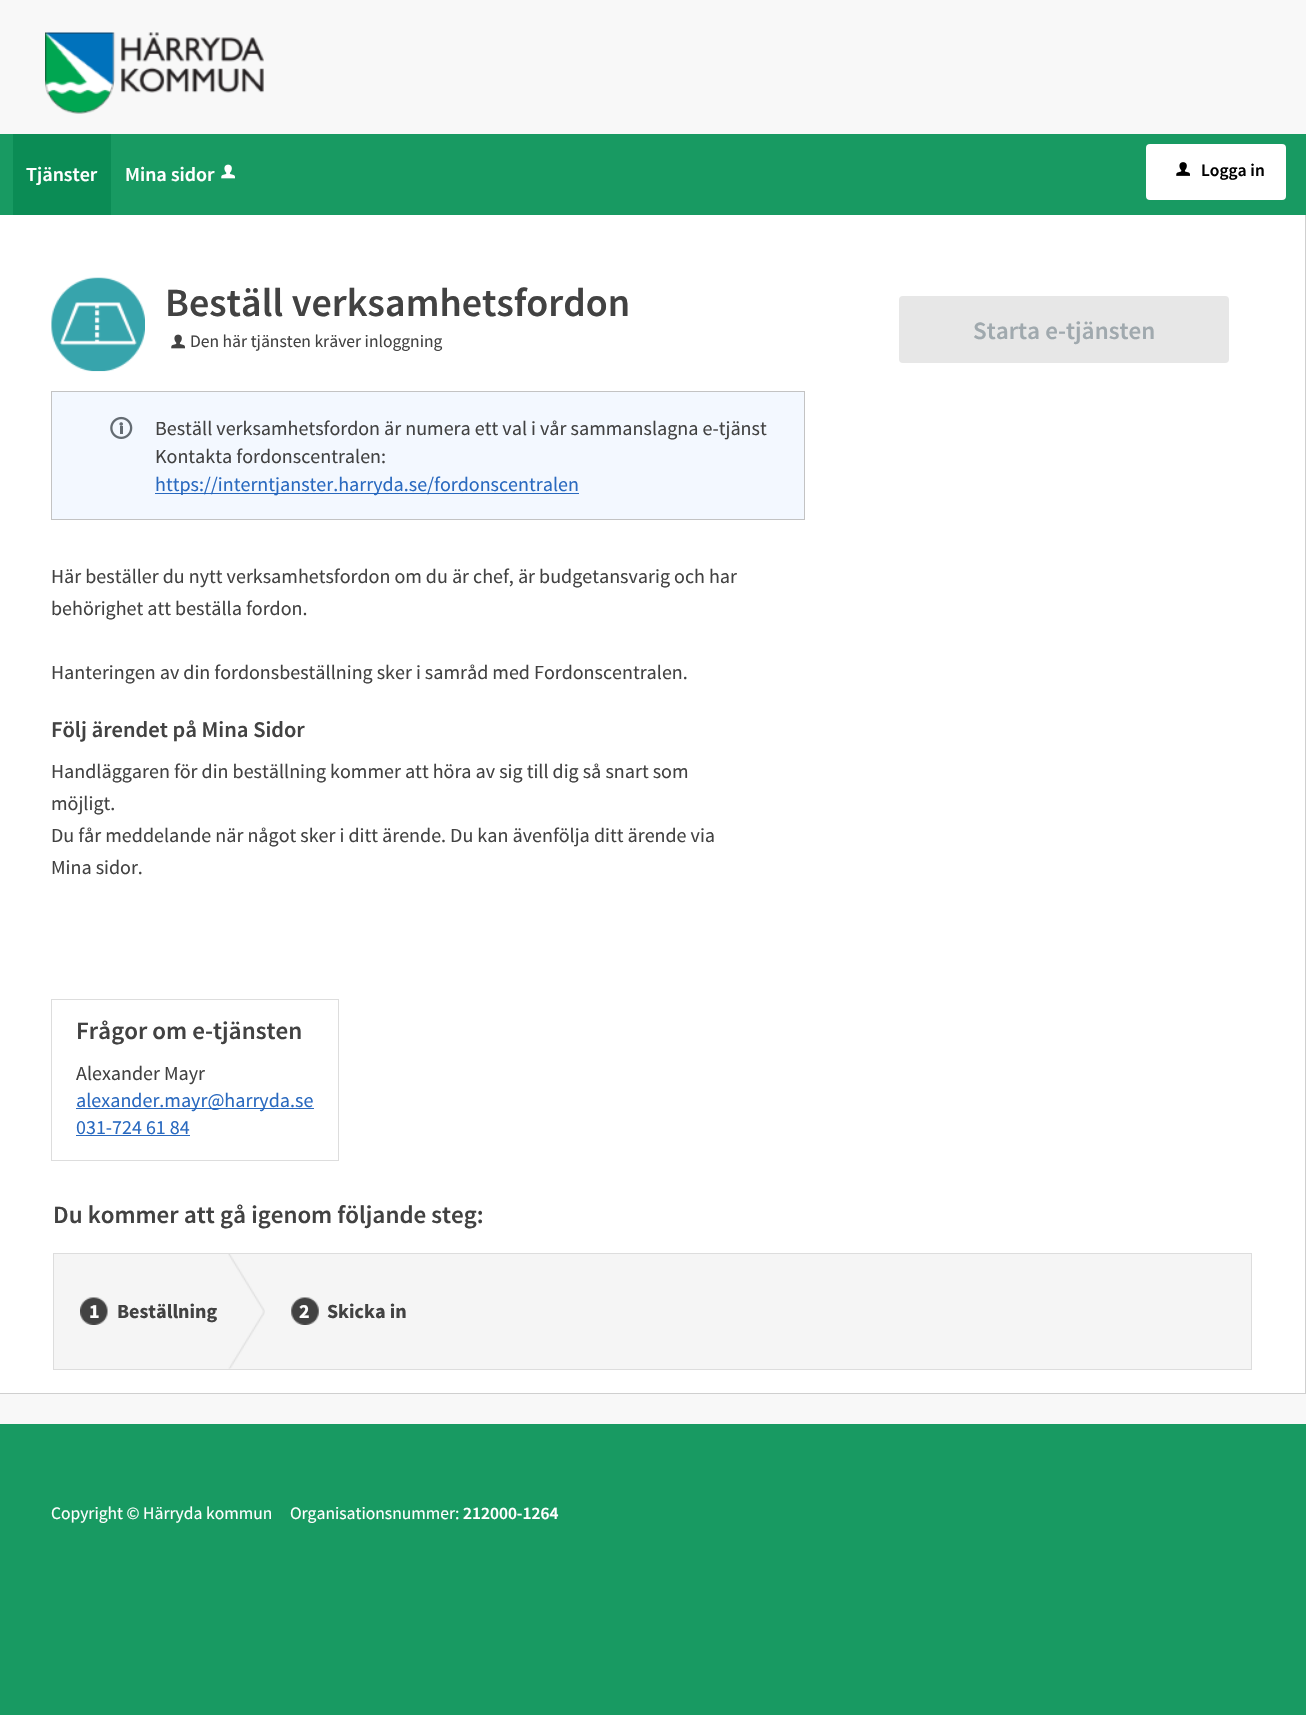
#include "include/core/SkBlurTypes.h"
#include "include/core/SkCanvas.h"
#include "include/core/SkData.h"
#include "include/core/SkFont.h"
#include "include/core/SkFontMgr.h"
#include "include/core/SkImage.h"
#include "include/core/SkMaskFilter.h"
#include "include/core/SkPaint.h"
#include "include/core/SkPathBuilder.h"
#include "include/core/SkTextBlob.h"
#include "include/effects/SkDashPathEffect.h"
#include "include/effects/SkGradientShader.h"
#include "include/utils/SkParsePath.h"

extern sk_sp<SkFontMgr> fontMgr;

void draw(SkCanvas* canvas) {
  SkPaint p;
  p.setAntiAlias(true);
  canvas->clear(SkColorSetRGB(248, 248, 248));
  canvas->drawImageRect(SkImages::DeferredFromEncodedData(SkData::MakeFromFileName("images/1.png")), SkRect::MakeLTRB(45, 32, 264, 114), SkSamplingOptions());
  p.setColor(SkColorSetRGB(24, 154, 98));
  canvas->drawRect(SkRect::MakeLTRB(0, 134, 1306, 215), p);
  p.setColor(SkColorSetRGB(11, 140, 85));
  canvas->drawRect(SkRect::MakeLTRB(13, 134, 111, 215), p);
  canvas->drawImageRect(SkImages::DeferredFromEncodedData(SkData::MakeFromFileName("images/2.png")), SkRect::MakeLTRB(221, 164, 235, 179), SkSamplingOptions());
  p.setColor(SK_ColorWHITE);
  canvas->drawRoundRect(SkRect::MakeLTRB(1146, 144, 1286, 200), 4, 4, p);
  canvas->drawImageRect(SkImages::DeferredFromEncodedData(SkData::MakeFromFileName("images/3.png")), SkRect::MakeLTRB(1176, 162, 1190, 176), SkSamplingOptions());
  canvas->drawRect(SkRect::MakeLTRB(0, 215, 1305, 1393), p);
  p.setColor(SkColorSetRGB(207, 207, 207));
  canvas->drawRect(SkRect::MakeLTRB(1305, 215, 1306, 1394), p);
  canvas->drawRect(SkRect::MakeLTRB(0, 1393, 1306, 1394), p);
  canvas->drawImageRect(SkImages::DeferredFromEncodedData(SkData::MakeFromFileName("images/4.png")), SkRect::MakeLTRB(51, 277, 145, 372), SkSamplingOptions());
  canvas->drawImageRect(SkImages::DeferredFromEncodedData(SkData::MakeFromFileName("images/5.png")), SkRect::MakeLTRB(171, 334, 185, 349), SkSamplingOptions());
  p.setColor(SkColorSetRGB(243, 248, 255));
  canvas->drawRect(SkRect::MakeLTRB(51.5f, 391.5f, 804.5f, 519.5f), p);
  p.setStyle(SkPaint::kStroke_Style);
  p.setStrokeWidth(1);
  p.setColor(SkColorSetRGB(195, 195, 195));
  canvas->drawRect(SkRect::MakeLTRB(51.5f, 391.5f, 804.5f, 519.5f), p);
  canvas->drawImageRect(SkImages::DeferredFromEncodedData(SkData::MakeFromFileName("images/6.png")), SkRect::MakeLTRB(110, 416, 133, 439), SkSamplingOptions());
  p.setStyle(SkPaint::kFill_Style);
  p.setColor(SkColorSetRGB(41, 105, 191));
  canvas->drawRect(SkRect::MakeLTRB(155, 493, 579, 494), p);
  p.setStyle(SkPaint::kStroke_Style);
  p.setColor(SkColorSetRGB(221, 221, 221));
  canvas->drawRect(SkRect::MakeLTRB(51.5f, 999.5f, 338.5f, 1160.5f), p);
  p.setStyle(SkPaint::kFill_Style);
  p.setColor(SkColorSetRGB(41, 105, 191));
  canvas->drawRect(SkRect::MakeLTRB(76, 1108, 314, 1109), p);
  canvas->drawRect(SkRect::MakeLTRB(76, 1135, 190, 1136), p);
  p.setColor(SkColorSetRGB(231, 231, 231));
  canvas->drawRoundRect(SkRect::MakeLTRB(899, 296, 1229, 363), 4, 4, p);
  p.setColor(SkColorSetRGB(221, 221, 221));
  canvas->drawRect(SkRect::MakeLTRB(1251, 1253, 1252, 1370), p);
  canvas->drawRect(SkRect::MakeLTRB(53, 1253, 54, 1370), p);
  p.setColor(SkColorSetRGB(245, 245, 245));
  canvas->drawRect(SkRect::MakeLTRB(54, 1254, 1251, 1369), p);
  p.setColor(SkColorSetRGB(221, 221, 221));
  canvas->drawRect(SkRect::MakeLTRB(54, 1253, 1251, 1254), p);
  canvas->drawRect(SkRect::MakeLTRB(54, 1369, 1251, 1370), p);
  canvas->drawImageRect(SkImages::DeferredFromEncodedData(SkData::MakeFromFileName("images/7.png")), SkRect::MakeLTRB(228, 1254, 265, 1369), SkSamplingOptions());
  canvas->drawImageRect(SkImages::DeferredFromEncodedData(SkData::MakeFromFileName("images/8.png")), SkRect::MakeLTRB(80, 1297, 108, 1325), SkSamplingOptions());
  canvas->drawImageRect(SkImages::DeferredFromEncodedData(SkData::MakeFromFileName("images/9.png")), SkRect::MakeLTRB(291, 1297, 319, 1325), SkSamplingOptions());
  p.setColor(SkColorSetRGB(24, 154, 98));
  canvas->drawPath(SkPathBuilder().moveTo(-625, 1424).lineTo(-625, 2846).lineTo(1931, 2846).lineTo(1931, 1424).lineTo(1306, 1424).lineTo(1306, 1596).lineTo(0, 1596).lineTo(0, 1424).close().detach(), p);
  canvas->drawRect(SkRect::MakeLTRB(0, 1424, 1306, 1596), p);
  SkFont font1(fontMgr->matchFamilyStyle("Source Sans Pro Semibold", SkFontStyle(600, SkFontStyle::kNormal_Width, SkFontStyle::kUpright_Slant)), 20);
  font1.setSubpixel(true);
  p.setColor(SK_ColorWHITE);
  canvas->drawString("Tjänster", 26, 181, font1, p);
  canvas->drawString("Mina sidor", 125, 181, font1, p);
  SkFont font2(fontMgr->matchFamilyStyle("Source Sans Pro Semibold", SkFontStyle(600, SkFontStyle::kNormal_Width, SkFontStyle::kUpright_Slant)), 17.5f);
  font2.setSubpixel(true);
  p.setColor(SK_ColorBLACK);
  canvas->drawString("Logga in", 1201, 176, font2, p);
  SkFont font3(fontMgr->matchFamilyStyle("Source Sans Pro Semibold", SkFontStyle(600, SkFontStyle::kNormal_Width, SkFontStyle::kUpright_Slant)), 40);
  font3.setSubpixel(true);
  p.setColor(SkColorSetRGB(66, 66, 66));
  canvas->drawString("Beställ verksamhetsfordon", 165, 316, font3, p);
  SkFont font4(fontMgr->matchFamilyStyle("Source Sans Pro", SkFontStyle::Normal()), 17.5f);
  font4.setSubpixel(true);
  canvas->drawString("Den här tjänsten kräver inloggning", 190, 347, font4, p);
  SkFont font5(fontMgr->matchFamilyStyle("Source Sans Pro", SkFontStyle::Normal()), 20);
  font5.setSubpixel(true);
  canvas->drawString("Beställ verksamhetsfordon är numera ett val i vår sammanslagna e-tjänst", 155, 435, font5, p);
  canvas->drawString("Kontakta fordonscentralen:", 155, 463, font5, p);
  p.setColor(SkColorSetRGB(41, 105, 191));
  canvas->drawString("https://interntjanster.harryda.se/fordonscentralen", 155, 491, font5, p);
  p.setColor(SkColorSetRGB(66, 66, 66));
  canvas->drawString("Här beställer du nytt verksamhetsfordon om du är chef, är budgetansvarig och har", 51, 583, font5, p);
  canvas->drawString("behörighet att beställa fordon.", 51, 615, font5, p);
  canvas->drawString("Hanteringen av din fordonsbeställning sker i samråd med Fordonscentralen.", 51, 679, font5, p);
  SkFont font6(fontMgr->matchFamilyStyle("Source Sans Pro Semibold", SkFontStyle(600, SkFontStyle::kNormal_Width, SkFontStyle::kUpright_Slant)), 22.5f);
  font6.setSubpixel(true);
  canvas->drawString("Följ ärendet på Mina Sidor", 51, 737, font6, p);
  canvas->drawString("Handläggaren för din beställning kommer att höra av sig till dig så snart som", 51, 778, font5, p);
  canvas->drawString("möjligt.", 51, 810, font5, p);
  canvas->drawString("Du får meddelande när något sker i ditt ärende. Du kan även följa ditt ärende via", 51, 842, font5, p);
  canvas->drawString("Mina sidor.", 51, 874, font5, p);
  SkFont font7(fontMgr->matchFamilyStyle("Source Sans Pro Semibold", SkFontStyle(600, SkFontStyle::kNormal_Width, SkFontStyle::kUpright_Slant)), 25);
  font7.setSubpixel(true);
  canvas->drawString("Frågor om e-tjänsten", 76, 1039, font7, p);
  canvas->drawString("Alexander Mayr", 76, 1080, font5, p);
  p.setColor(SkColorSetRGB(41, 105, 191));
  canvas->drawString("alexander.mayr@harryda.se", 76, 1107, font5, p);
  canvas->drawString("031-724 61 84", 76, 1134, font5, p);
  p.setColor(SkColorSetRGB(160, 169, 174));
  canvas->drawString("Starta e-tjänsten", 973, 339, font7, p);
  p.setColor(SkColorSetRGB(66, 66, 66));
  canvas->drawString("Du kommer att gå igenom följande steg:", 53, 1223, font7, p);
  SkFont font8(fontMgr->matchFamilyStyle("Source Sans Pro", SkFontStyle::Bold()), 20);
  font8.setSubpixel(true);
  p.setColor(SK_ColorWHITE);
  canvas->drawString("1", 89, 1318, font8, p);
  p.setColor(SkColorSetRGB(66, 66, 66));
  canvas->drawString("Beställning", 117, 1318, font8, p);
  p.setColor(SK_ColorWHITE);
  canvas->drawString("2", 299, 1318, font8, p);
  p.setColor(SkColorSetRGB(66, 66, 66));
  canvas->drawString("Skicka in", 327, 1318, font8, p);
  p.setColor(SK_ColorWHITE);
  canvas->drawString("Copyright © Härryda kommun     Organisationsnummer:", 51, 1519, font4, p);
  canvas->drawString("212000-1264", 463, 1519, font2, p);
}
